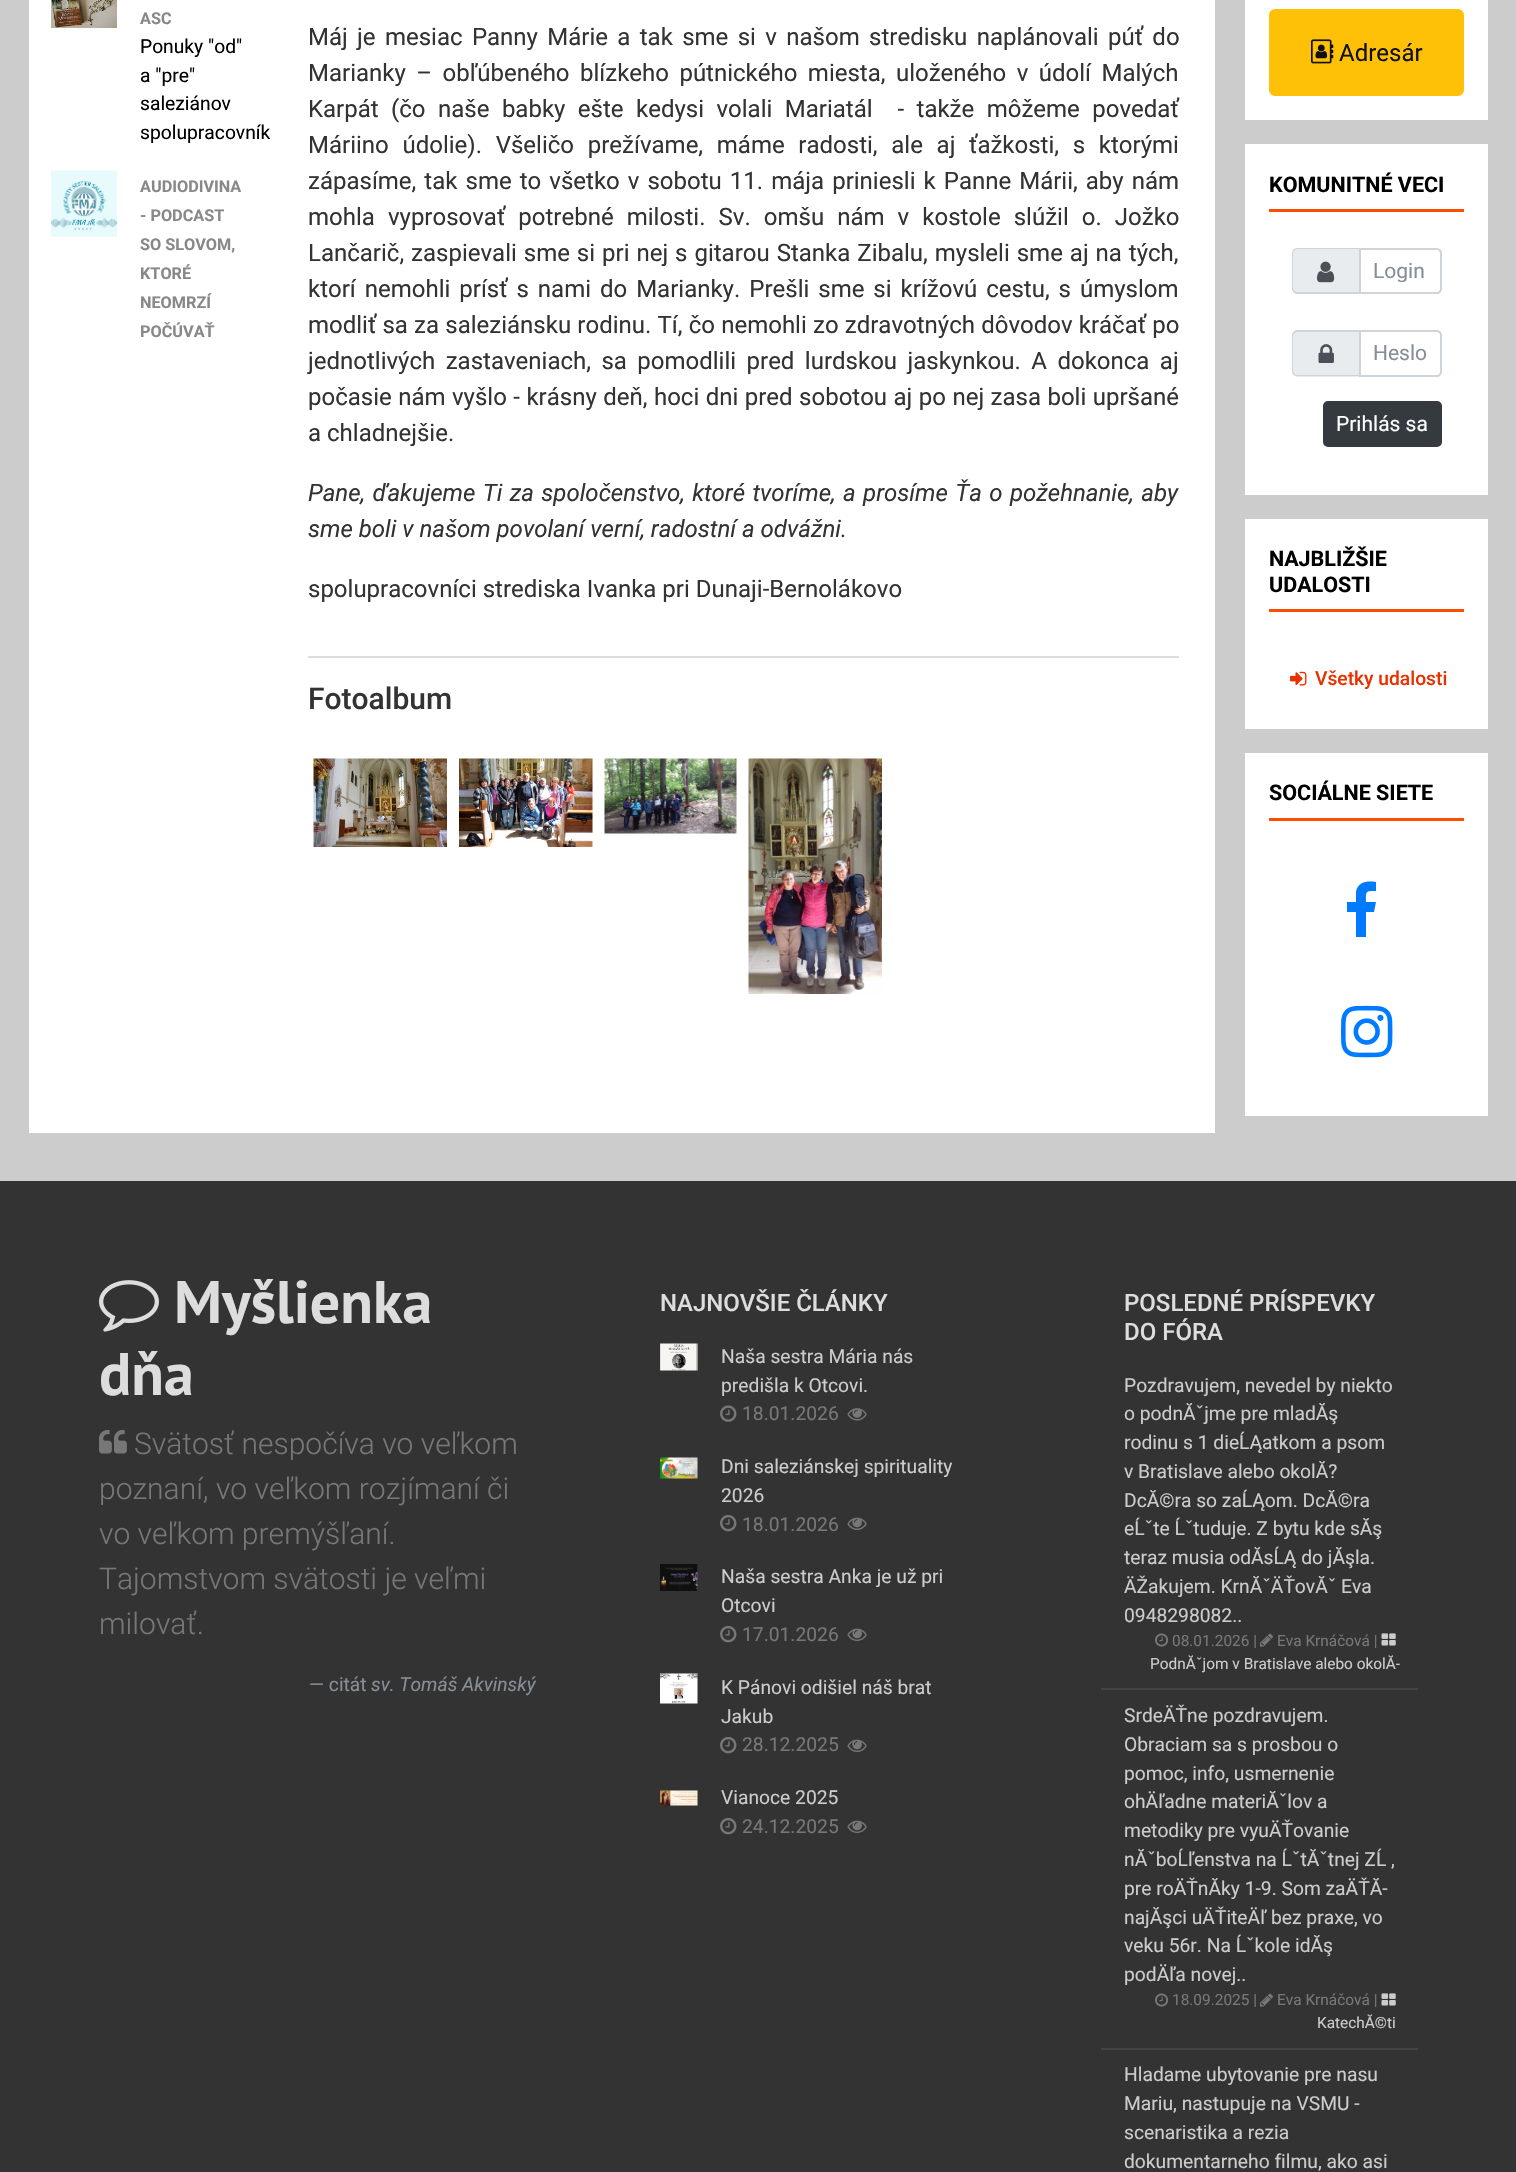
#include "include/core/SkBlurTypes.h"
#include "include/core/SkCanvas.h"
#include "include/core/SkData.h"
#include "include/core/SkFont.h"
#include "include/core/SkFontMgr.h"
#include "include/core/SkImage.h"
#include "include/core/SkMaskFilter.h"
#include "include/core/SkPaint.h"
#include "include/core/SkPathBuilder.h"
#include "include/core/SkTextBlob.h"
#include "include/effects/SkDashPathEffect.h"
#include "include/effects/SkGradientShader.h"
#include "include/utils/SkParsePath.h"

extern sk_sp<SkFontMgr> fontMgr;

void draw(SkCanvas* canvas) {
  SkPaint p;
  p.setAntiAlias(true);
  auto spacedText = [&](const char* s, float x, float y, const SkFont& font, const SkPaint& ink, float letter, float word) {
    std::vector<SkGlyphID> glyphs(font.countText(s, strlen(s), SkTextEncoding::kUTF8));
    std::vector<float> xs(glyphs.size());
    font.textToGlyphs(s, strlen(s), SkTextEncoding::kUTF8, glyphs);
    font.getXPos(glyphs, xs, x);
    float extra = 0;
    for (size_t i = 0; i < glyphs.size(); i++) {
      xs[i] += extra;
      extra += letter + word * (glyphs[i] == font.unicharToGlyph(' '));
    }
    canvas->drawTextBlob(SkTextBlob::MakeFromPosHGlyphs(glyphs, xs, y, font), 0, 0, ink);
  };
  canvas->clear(SkColorSetRGB(204, 204, 204));
  p.setColor(SK_ColorWHITE);
  canvas->drawRect(SkRect::MakeLTRB(29, 0, 1215, 1133), p);
  canvas->drawImageRect(SkImages::DeferredFromEncodedData(SkData::MakeFromFileName("images/1.png")), SkRect::MakeLTRB(51, 0, 117, 28), SkSamplingOptions());
  canvas->drawImageRect(SkImages::DeferredFromEncodedData(SkData::MakeFromFileName("images/2.png")), SkRect::MakeLTRB(51, 170, 117, 237), SkSamplingOptions());
  p.setColor(SkColorSetRGB(221, 221, 221));
  canvas->drawRect(SkRect::MakeLTRB(308, 656, 1179, 658), p);
  canvas->drawImageRect(SkImages::DeferredFromEncodedData(SkData::MakeFromFileName("images/3.png")), SkRect::MakeLTRB(313, 758, 447, 847), SkSamplingOptions());
  canvas->drawImageRect(SkImages::DeferredFromEncodedData(SkData::MakeFromFileName("images/4.png")), SkRect::MakeLTRB(459, 758, 593, 847), SkSamplingOptions());
  canvas->drawImageRect(SkImages::DeferredFromEncodedData(SkData::MakeFromFileName("images/5.png")), SkRect::MakeLTRB(604, 758, 737, 834), SkSamplingOptions());
  canvas->drawImageRect(SkImages::DeferredFromEncodedData(SkData::MakeFromFileName("images/6.png")), SkRect::MakeLTRB(748, 758, 882, 994), SkSamplingOptions());
  p.setColor(SK_ColorWHITE);
  canvas->drawRect(SkRect::MakeLTRB(1245, 0, 1488, 120), p);
  p.setColor(SkColorSetRGB(255, 193, 7));
  canvas->drawRoundRect(SkRect::MakeLTRB(1270, 10, 1463, 95), 5, 5, p);
  p.setStyle(SkPaint::kStroke_Style);
  p.setStrokeWidth(2);
  canvas->drawRoundRect(SkRect::MakeLTRB(1270, 10, 1463, 95), 5, 5, p);
  canvas->drawImageRect(SkImages::DeferredFromEncodedData(SkData::MakeFromFileName("images/7.png")), SkRect::MakeLTRB(1311, 39, 1334, 64), SkSamplingOptions());
  p.setStyle(SkPaint::kFill_Style);
  p.setColor(SK_ColorWHITE);
  canvas->drawRect(SkRect::MakeLTRB(1245, 144, 1488, 495), p);
  p.setColor(SkColorSetRGB(255, 78, 0));
  canvas->drawRect(SkRect::MakeLTRB(1269, 209, 1464, 212), p);
  p.setColor(SkColorSetRGB(233, 236, 239));
  canvas->drawPath(SkPathBuilder().moveTo(1298, 248).lineTo(1359, 248).lineTo(1359, 294).lineTo(1298, 294).cubicTo(1294.5f, 294, 1292, 291.5f, 1292, 288).lineTo(1292, 254).cubicTo(1292, 250.5f, 1294.5f, 248, 1298, 248).close().detach(), p);
  p.setColor(SkColorSetRGB(206, 212, 218));
  canvas->drawPath(SkPathBuilder(SkPathFillType::kEvenOdd).moveTo(1298, 248).lineTo(1359, 248).lineTo(1359, 294).lineTo(1298, 294).cubicTo(1294, 294, 1292, 291, 1292, 288).lineTo(1292, 254).cubicTo(1292, 250, 1294, 248, 1298, 248).close().moveTo(1298, 249).lineTo(1359, 249).lineTo(1359, 292).lineTo(1298, 292).cubicTo(1295, 292, 1293, 290, 1293, 288).lineTo(1293, 254).cubicTo(1293, 251, 1295, 249, 1298, 249).close().detach(), p);
  canvas->drawImageRect(SkImages::DeferredFromEncodedData(SkData::MakeFromFileName("images/8.png")), SkRect::MakeLTRB(1317, 261, 1335, 283), SkSamplingOptions());
  p.setStyle(SkPaint::kStroke_Style);
  canvas->drawPath(SkPathBuilder().moveTo(1360, 249).lineTo(1437, 249).cubicTo(1439, 249, 1441, 251, 1441, 253).lineTo(1441, 289).cubicTo(1441, 291, 1439, 293, 1437, 293).lineTo(1360, 293).close().detach(), p);
  p.setStyle(SkPaint::kFill_Style);
  p.setColor(SkColorSetRGB(233, 236, 239));
  canvas->drawPath(SkPathBuilder().moveTo(1298, 330).lineTo(1359, 330).lineTo(1359, 377).lineTo(1298, 377).cubicTo(1294.5f, 377, 1292, 374.5f, 1292, 371).lineTo(1292, 336).cubicTo(1292, 332.5f, 1294.5f, 330, 1298, 330).close().detach(), p);
  p.setColor(SkColorSetRGB(206, 212, 218));
  canvas->drawPath(SkPathBuilder(SkPathFillType::kEvenOdd).moveTo(1298, 330).lineTo(1359, 330).lineTo(1359, 376).lineTo(1298, 376).cubicTo(1294, 376, 1292, 374, 1292, 370).lineTo(1292, 336).cubicTo(1292, 333, 1294, 330, 1298, 330).close().moveTo(1298, 332).lineTo(1359, 332).lineTo(1359, 375).lineTo(1298, 375).cubicTo(1295, 375, 1293, 373, 1293, 370).lineTo(1293, 336).cubicTo(1293, 334, 1295, 332, 1298, 332).close().detach(), p);
  canvas->drawImageRect(SkImages::DeferredFromEncodedData(SkData::MakeFromFileName("images/9.png")), SkRect::MakeLTRB(1318, 344, 1334, 363), SkSamplingOptions());
  p.setStyle(SkPaint::kStroke_Style);
  canvas->drawPath(SkPathBuilder().moveTo(1360, 331).lineTo(1437, 331).cubicTo(1439, 331, 1441, 333, 1441, 335).lineTo(1441, 372).cubicTo(1441, 374, 1439, 376, 1437, 376).lineTo(1360, 376).close().detach(), p);
  p.setStyle(SkPaint::kFill_Style);
  p.setColor(SkColorSetRGB(52, 58, 64));
  canvas->drawRoundRect(SkRect::MakeLTRB(1324, 402, 1441, 446), 4, 4, p);
  p.setStyle(SkPaint::kStroke_Style);
  canvas->drawRoundRect(SkRect::MakeLTRB(1324, 402, 1441, 446), 4, 4, p);
  p.setStyle(SkPaint::kFill_Style);
  p.setColor(SK_ColorWHITE);
  canvas->drawRect(SkRect::MakeLTRB(1245, 519, 1488, 729), p);
  p.setColor(SkColorSetRGB(255, 78, 0));
  canvas->drawRect(SkRect::MakeLTRB(1269, 609, 1464, 612), p);
  canvas->drawImageRect(SkImages::DeferredFromEncodedData(SkData::MakeFromFileName("images/10.png")), SkRect::MakeLTRB(1290, 671, 1307, 686), SkSamplingOptions());
  p.setColor(SK_ColorWHITE);
  canvas->drawRect(SkRect::MakeLTRB(1245, 753, 1488, 1116), p);
  p.setColor(SkColorSetRGB(255, 78, 0));
  canvas->drawRect(SkRect::MakeLTRB(1269, 818, 1464, 821), p);
  p.setColor(SkColorSetRGB(0, 123, 255));
  canvas->drawPath(SkPathBuilder().moveTo(1376, 882).lineTo(1376, 891).cubicTo(1365, 891, 1366, 891, 1366, 902).lineTo(1376, 902).lineTo(1374, 912).lineTo(1366, 912).lineTo(1366, 937).lineTo(1356, 937).lineTo(1356, 912).lineTo(1347, 912).lineTo(1347, 902).lineTo(1356, 902).lineTo(1356, 892).cubicTo(1358, 881, 1368, 881, 1376, 882).close().detach(), p);
  canvas->drawImageRect(SkImages::DeferredFromEncodedData(SkData::MakeFromFileName("images/11.png")), SkRect::MakeLTRB(1341, 1005, 1393, 1058), SkSamplingOptions());
  p.setColor(SkColorSetRGB(51, 51, 51));
  canvas->drawRect(SkRect::MakeLTRB(0, 1181, 1516, 2172), p);
  canvas->drawImageRect(SkImages::DeferredFromEncodedData(SkData::MakeFromFileName("images/12.png")), SkRect::MakeLTRB(99, 1280, 159, 1332), SkSamplingOptions());
  canvas->drawImageRect(SkImages::DeferredFromEncodedData(SkData::MakeFromFileName("images/13.png")), SkRect::MakeLTRB(99, 1430, 127, 1454), SkSamplingOptions());
  canvas->drawImageRect(SkImages::DeferredFromEncodedData(SkData::MakeFromFileName("images/14.png")), SkRect::MakeLTRB(660, 1343, 698, 1371), SkSamplingOptions());
  canvas->drawImageRect(SkImages::DeferredFromEncodedData(SkData::MakeFromFileName("images/15.png")), SkRect::MakeLTRB(720, 1405, 737, 1422), SkSamplingOptions());
  canvas->drawImageRect(SkImages::DeferredFromEncodedData(SkData::MakeFromFileName("images/16.png")), SkRect::MakeLTRB(847, 1408, 867, 1421), SkSamplingOptions());
  canvas->drawImageRect(SkImages::DeferredFromEncodedData(SkData::MakeFromFileName("images/17.png")), SkRect::MakeLTRB(660, 1457, 698, 1479), SkSamplingOptions());
  canvas->drawImageRect(SkImages::DeferredFromEncodedData(SkData::MakeFromFileName("images/18.png")), SkRect::MakeLTRB(720, 1515, 737, 1532), SkSamplingOptions());
  canvas->drawImageRect(SkImages::DeferredFromEncodedData(SkData::MakeFromFileName("images/19.png")), SkRect::MakeLTRB(847, 1517, 867, 1530), SkSamplingOptions());
  canvas->drawImageRect(SkImages::DeferredFromEncodedData(SkData::MakeFromFileName("images/20.png")), SkRect::MakeLTRB(660, 1564, 698, 1591), SkSamplingOptions());
  canvas->drawImageRect(SkImages::DeferredFromEncodedData(SkData::MakeFromFileName("images/18.png")), SkRect::MakeLTRB(720, 1626, 737, 1643), SkSamplingOptions());
  canvas->drawImageRect(SkImages::DeferredFromEncodedData(SkData::MakeFromFileName("images/19.png")), SkRect::MakeLTRB(847, 1628, 867, 1641), SkSamplingOptions());
  canvas->drawImageRect(SkImages::DeferredFromEncodedData(SkData::MakeFromFileName("images/21.png")), SkRect::MakeLTRB(660, 1673, 698, 1704), SkSamplingOptions());
  canvas->drawImageRect(SkImages::DeferredFromEncodedData(SkData::MakeFromFileName("images/18.png")), SkRect::MakeLTRB(720, 1737, 737, 1754), SkSamplingOptions());
  canvas->drawImageRect(SkImages::DeferredFromEncodedData(SkData::MakeFromFileName("images/19.png")), SkRect::MakeLTRB(847, 1739, 867, 1752), SkSamplingOptions());
  canvas->drawImageRect(SkImages::DeferredFromEncodedData(SkData::MakeFromFileName("images/22.png")), SkRect::MakeLTRB(660, 1790, 698, 1806), SkSamplingOptions());
  canvas->drawImageRect(SkImages::DeferredFromEncodedData(SkData::MakeFromFileName("images/18.png")), SkRect::MakeLTRB(720, 1818, 737, 1835), SkSamplingOptions());
  canvas->drawImageRect(SkImages::DeferredFromEncodedData(SkData::MakeFromFileName("images/19.png")), SkRect::MakeLTRB(847, 1820, 867, 1833), SkSamplingOptions());
  p.setColor(SkColorSetRGB(68, 68, 68));
  canvas->drawRect(SkRect::MakeLTRB(1101, 1688, 1418, 1690), p);
  canvas->drawImageRect(SkImages::DeferredFromEncodedData(SkData::MakeFromFileName("images/23.png")), SkRect::MakeLTRB(1155, 1633, 1169, 1647), SkSamplingOptions());
  canvas->drawImageRect(SkImages::DeferredFromEncodedData(SkData::MakeFromFileName("images/24.png")), SkRect::MakeLTRB(1260, 1633, 1273, 1647), SkSamplingOptions());
  canvas->drawImageRect(SkImages::DeferredFromEncodedData(SkData::MakeFromFileName("images/25.png")), SkRect::MakeLTRB(1381, 1633, 1396, 1646), SkSamplingOptions());
  canvas->drawRect(SkRect::MakeLTRB(1101, 2048, 1418, 2050), p);
  canvas->drawImageRect(SkImages::DeferredFromEncodedData(SkData::MakeFromFileName("images/23.png")), SkRect::MakeLTRB(1155, 1993, 1169, 2007), SkSamplingOptions());
  canvas->drawImageRect(SkImages::DeferredFromEncodedData(SkData::MakeFromFileName("images/24.png")), SkRect::MakeLTRB(1260, 1993, 1273, 2007), SkSamplingOptions());
  canvas->drawImageRect(SkImages::DeferredFromEncodedData(SkData::MakeFromFileName("images/25.png")), SkRect::MakeLTRB(1381, 1993, 1396, 2006), SkSamplingOptions());
  SkFont font1(fontMgr->matchFamilyStyle("Roboto", SkFontStyle::Bold()), 16.25f);
  font1.setSubpixel(true);
  p.setColor(SkColorSetRGB(136, 136, 136));
  canvas->drawString("ASC", 140, 24, font1, p);
  SkFont font2(fontMgr->matchFamilyStyle("Roboto", SkFontStyle::Normal()), 19.25f);
  font2.setSubpixel(true);
  p.setColor(SK_ColorBLACK);
  canvas->drawString("Ponuky \"od\"", 140, 53, font2, p);
  canvas->drawString("a \"pre\"", 140, 82, font2, p);
  canvas->drawString("saleziánov", 140, 110, font2, p);
  canvas->drawString("spolupracovník", 140, 139, font2, p);
  p.setColor(SkColorSetRGB(136, 136, 136));
  canvas->drawString("AUDIODIVINA", 140, 192, font1, p);
  canvas->drawString("- PODCAST", 140, 221, font1, p);
  canvas->drawString("SO SLOVOM,", 140, 250, font1, p);
  canvas->drawString("KTORÉ", 140, 279, font1, p);
  canvas->drawString("NEOMRZÍ", 140, 308, font1, p);
  canvas->drawString("POČÚVAŤ", 140, 337, font1, p);
  SkFont font3(fontMgr->matchFamilyStyle("Roboto", SkFontStyle::Normal()), 24);
  font3.setSubpixel(true);
  p.setColor(SkColorSetRGB(51, 51, 51));
  spacedText("Máj je mesiac Panny Márie a tak sme si v našom stredisku naplánovali púť do", 308, 45, font3, p, 0, 3.4f);
  spacedText("Marianky – obľúbeného blízkeho pútnického miesta, uloženého v údolí Malých", 308, 81, font3, p, 0, 4.5f);
  spacedText("Karpát (čo naše babky ešte kedysi volali Mariatál  - takže môžeme povedať", 308, 117, font3, p, 0, 6.5f);
  spacedText("Máriino údolie). Všeličo prežívame, máme radosti, ale aj ťažkosti, s ktorými", 308, 153, font3, p, 0, 7.75f);
  spacedText("zápasíme, tak sme to všetko v sobotu 11. mája priniesli k Panne Márii, aby nám", 308, 189, font3, p, 0, 2.1f);
  spacedText("mohla vyprosovať potrebné milosti. Sv. omšu nám v kostole slúžil o. Jožko", 308, 225, font3, p, 0, 7.1f);
  spacedText("Lančarič, zaspievali sme si pri nej s gitarou Stanka Zibalu, mysleli sme aj na tých,", 308, 261, font3, p, 0, 1);
  spacedText("ktorí nemohli prísť s nami do Marianky. Prešli sme si krížovú cestu, s úmyslom", 308, 297, font3, p, 0, 3);
  spacedText("modliť sa za saleziánsku rodinu. Tí, čo nemohli zo zdravotných dôvodov kráčať po", 308, 333, font3, p, 0, 0.25f);
  spacedText("jednotlivých zastaveniach, sa pomodlili pred lurdskou jaskynkou. A dokonca aj", 308, 369, font3, p, 0, 4.5f);
  spacedText("počasie nám vyšlo - krásny deň, hoci dni pred sobotou aj po nej zasa boli upršané", 308, 405, font3, p, 0, 0.5f);
  canvas->drawString("a chladnejšie.", 308, 441, font3, p);
  SkFont font4(fontMgr->matchFamilyStyle("Roboto", SkFontStyle::Italic()), 24);
  font4.setSubpixel(true);
  spacedText("Pane, ďakujeme Ti za spoločenstvo, ktoré tvoríme, a prosíme Ťa o požehnanie, aby", 308, 501, font4, p, 0, 1.5f);
  canvas->drawString("sme boli v našom povolaní verní, radostní a odvážni.", 308, 537, font4, p);
  canvas->drawString("spolupracovníci strediska Ivanka pri Dunaji-Bernolákovo", 308, 597, font3, p);
  SkFont font5(fontMgr->matchFamilyStyle("Roboto", SkFontStyle(500, SkFontStyle::kNormal_Width, SkFontStyle::kUpright_Slant)), 30);
  font5.setSubpixel(true);
  canvas->drawString("Fotoalbum", 308, 709, font5, p);
  p.setColor(SkColorSetRGB(17, 17, 17));
  canvas->drawString("Adresár", 1339, 61, font3, p);
  SkFont font6(fontMgr->matchFamilyStyle("Roboto", SkFontStyle::Bold()), 21.5f);
  font6.setSubpixel(true);
  p.setColor(SK_ColorBLACK);
  canvas->drawString("KOMUNITNÉ VECI", 1269, 192, font6, p);
  canvas->save();
  canvas->clipRect(SkRect::MakeLTRB(1373, 258, 1428, 282));
  SkFont font7(fontMgr->matchFamilyStyle("Roboto", SkFontStyle::Normal()), 21);
  font7.setSubpixel(true);
  p.setColor(SkColorSetRGB(134, 142, 150));
  canvas->drawString("Login", 1373, 278, font7, p);
  canvas->restore();
  canvas->drawString("Heslo", 1373, 360, font7, p);
  p.setColor(SK_ColorWHITE);
  canvas->drawString("Prihlás sa", 1336, 431, font7, p);
  p.setColor(SK_ColorBLACK);
  canvas->drawString("NAJBLIŽŠIE", 1269, 566, font6, p);
  canvas->drawString("UDALOSTI", 1269, 592, font6, p);
  SkFont font8(fontMgr->matchFamilyStyle("Roboto", SkFontStyle(500, SkFontStyle::kNormal_Width, SkFontStyle::kUpright_Slant)), 19.25f);
  font8.setSubpixel(true);
  p.setColor(SkColorSetRGB(233, 49, 0));
  canvas->drawString("Všetky udalosti", 1315, 685, font8, p);
  p.setColor(SK_ColorBLACK);
  canvas->drawString("SOCIÁLNE SIETE", 1269, 800, font6, p);
  SkFont font9(fontMgr->matchFamilyStyle("PT Sans", SkFontStyle::Bold()), 60);
  font9.setSubpixel(true);
  p.setColor(SkColorSetRGB(221, 221, 221));
  canvas->drawString("Myšlienka", 174, 1323, font9, p);
  canvas->drawString("dňa", 99, 1395, font9, p);
  SkFont font10(fontMgr->matchFamilyStyle("Roboto", SkFontStyle(300, SkFontStyle::kNormal_Width, SkFontStyle::kUpright_Slant)), 30);
  font10.setSubpixel(true);
  p.setColor(SkColorSetRGB(119, 119, 119));
  canvas->drawString("Svätosť nespočíva vo veľkom", 134, 1454, font10, p);
  canvas->drawString("poznaní, vo veľkom rozjímaní či", 99, 1499, font10, p);
  canvas->drawString("vo veľkom premýšľaní.", 99, 1544, font10, p);
  canvas->drawString("Tajomstvom svätosti je veľmi", 99, 1589, font10, p);
  canvas->drawString("milovať.", 99, 1634, font10, p);
  p.setColor(SkColorSetRGB(134, 142, 150));
  canvas->drawString("— citát", 309, 1691, font2, p);
  SkFont font11(fontMgr->matchFamilyStyle("Roboto", SkFontStyle::Italic()), 19.25f);
  font11.setSubpixel(true);
  canvas->drawString("sv. Tomáš Akvinský", 371, 1691, font11, p);
  SkFont font12(fontMgr->matchFamilyStyle("Roboto", SkFontStyle(500, SkFontStyle::kNormal_Width, SkFontStyle::kUpright_Slant)), 24);
  font12.setSubpixel(true);
  p.setColor(SkColorSetRGB(221, 221, 221));
  canvas->drawString("NAJNOVŠIE ČLÁNKY", 660, 1311, font12, p);
  p.setColor(SkColorSetRGB(204, 204, 204));
  canvas->drawString("Naša sestra Mária nás", 721, 1363, font2, p);
  canvas->drawString("predišla k Otcovi.", 721, 1392, font2, p);
  p.setColor(SkColorSetRGB(119, 119, 119));
  canvas->drawString("18.01.2026", 742, 1420, font2, p);
  p.setColor(SkColorSetRGB(204, 204, 204));
  canvas->drawString("Dni saleziánskej spirituality", 721, 1473, font2, p);
  canvas->drawString("2026", 721, 1502, font2, p);
  p.setColor(SkColorSetRGB(119, 119, 119));
  canvas->drawString("18.01.2026", 742, 1531, font2, p);
  p.setColor(SkColorSetRGB(204, 204, 204));
  canvas->drawString("Naša sestra Anka je už pri", 721, 1583, font2, p);
  canvas->drawString("Otcovi", 721, 1612, font2, p);
  p.setColor(SkColorSetRGB(119, 119, 119));
  canvas->drawString("17.01.2026", 742, 1641, font2, p);
  p.setColor(SkColorSetRGB(204, 204, 204));
  canvas->drawString("K Pánovi odišiel náš brat", 721, 1694, font2, p);
  canvas->drawString("Jakub", 721, 1723, font2, p);
  p.setColor(SkColorSetRGB(119, 119, 119));
  canvas->drawString("28.12.2025", 742, 1751, font2, p);
  p.setColor(SkColorSetRGB(204, 204, 204));
  canvas->drawString("Vianoce 2025", 721, 1804, font2, p);
  p.setColor(SkColorSetRGB(119, 119, 119));
  canvas->drawString("24.12.2025", 742, 1833, font2, p);
  p.setColor(SkColorSetRGB(221, 221, 221));
  canvas->drawString("POSLEDNÉ PRÍSPEVKY", 1124, 1311, font12, p);
  canvas->drawString("DO FÓRA", 1124, 1340, font12, p);
  p.setColor(SkColorSetRGB(204, 204, 204));
  canvas->drawString("Pozdravujem, nevedel by niekto", 1124, 1392, font2, p);
  canvas->drawString("o podnĂˇjme pre mladĂş", 1124, 1420, font2, p);
  canvas->drawString("rodinu s 1 dieĹĄatkom a psom", 1124, 1449, font2, p);
  canvas->drawString("v Bratislave alebo okolĂ?", 1124, 1478, font2, p);
  canvas->drawString("DcĂ©ra so zaĹĄom. DcĂ©ra", 1124, 1507, font2, p);
  canvas->drawString("eĹˇte Ĺˇtuduje. Z bytu kde sĂş", 1124, 1535, font2, p);
  canvas->drawString("teraz musia odĂsĹĄ do jĂşla.", 1124, 1564, font2, p);
  canvas->drawString("ÄŽakujem. KrnĂˇÄŤovĂˇ Eva", 1124, 1593, font2, p);
  canvas->drawString("0948298082..", 1124, 1622, font2, p);
  SkFont font13(fontMgr->matchFamilyStyle("Roboto", SkFontStyle::Normal()), 15.4f);
  font13.setSubpixel(true);
  p.setColor(SkColorSetRGB(119, 119, 119));
  canvas->drawString("08.01.2026 |", 1172, 1646, font13, p);
  canvas->drawString("Eva Krnáčová |", 1277, 1646, font13, p);
  p.setColor(SkColorSetRGB(204, 204, 204));
  canvas->drawString("PodnĂˇjom v Bratislave alebo okolĂ-", 1150, 1669, font13, p);
  canvas->drawString("SrdeÄŤne pozdravujem.", 1124, 1722, font2, p);
  canvas->drawString("Obraciam sa s prosbou o", 1124, 1751, font2, p);
  canvas->drawString("pomoc, info, usmernenie", 1124, 1780, font2, p);
  canvas->drawString("ohÄľadne materiĂˇlov a", 1124, 1808, font2, p);
  canvas->drawString("metodiky pre vyuÄŤovanie", 1124, 1837, font2, p);
  canvas->drawString("nĂˇboĹľenstva na ĹˇtĂˇtnej ZĹ ,", 1124, 1866, font2, p);
  canvas->drawString("pre roÄŤnĂky 1-9. Som zaÄŤĂ-", 1124, 1895, font2, p);
  canvas->drawString("najĂşci uÄŤiteÄľ bez praxe, vo", 1124, 1924, font2, p);
  canvas->drawString("veku 56r. Na Ĺˇkole idĂş", 1124, 1952, font2, p);
  canvas->drawString("podÄľa novej..", 1124, 1981, font2, p);
  p.setColor(SkColorSetRGB(119, 119, 119));
  canvas->drawString("18.09.2025 |", 1172, 2005, font13, p);
  canvas->drawString("Eva Krnáčová |", 1277, 2005, font13, p);
  p.setColor(SkColorSetRGB(204, 204, 204));
  canvas->drawString("KatechĂ©ti", 1317, 2028, font13, p);
  canvas->drawString("Hladame ubytovanie pre nasu", 1124, 2081, font2, p);
  canvas->drawString("Mariu, nastupuje na VSMU -", 1124, 2110, font2, p);
  canvas->drawString("scenaristika a rezia", 1124, 2139, font2, p);
  canvas->drawString("dokumentarneho filmu, ako asi", 1124, 2168, font2, p);
}
